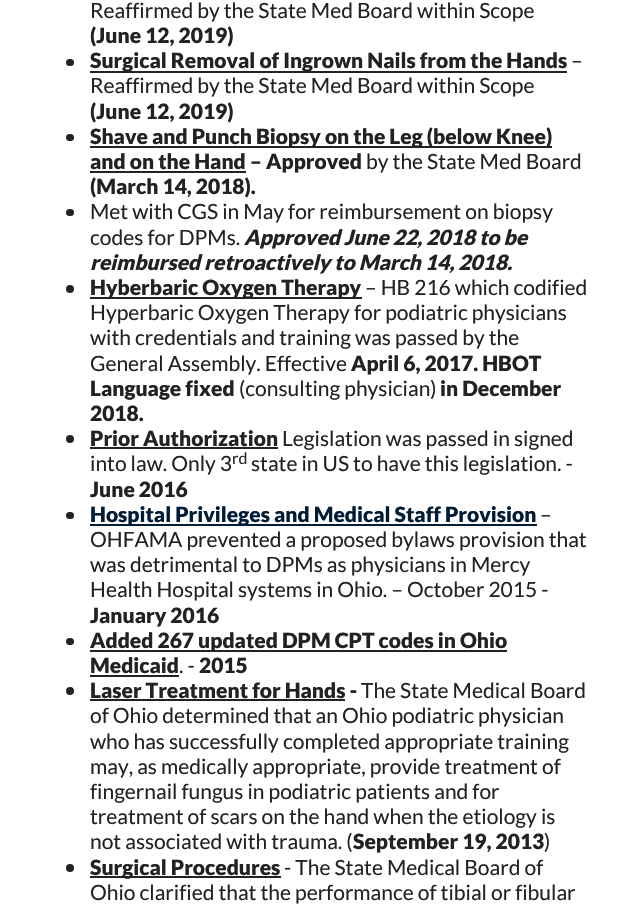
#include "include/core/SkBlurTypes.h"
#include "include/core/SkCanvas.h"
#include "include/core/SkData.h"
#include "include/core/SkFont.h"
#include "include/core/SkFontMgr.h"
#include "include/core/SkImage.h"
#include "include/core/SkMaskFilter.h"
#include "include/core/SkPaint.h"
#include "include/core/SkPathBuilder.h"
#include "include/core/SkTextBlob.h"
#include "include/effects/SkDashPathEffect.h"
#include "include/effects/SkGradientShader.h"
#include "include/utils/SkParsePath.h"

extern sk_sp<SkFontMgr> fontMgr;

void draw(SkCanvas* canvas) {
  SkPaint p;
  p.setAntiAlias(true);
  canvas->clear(SK_ColorWHITE);
  p.setColor(SkColorSetRGB(34, 34, 34));
  canvas->drawRoundRect(SkRect::MakeLTRB(66, 59, 74, 66), 3.5f, 3.5f, p);
  canvas->drawRect(SkRect::MakeLTRB(90, 71, 567, 73), p);
  canvas->drawRoundRect(SkRect::MakeLTRB(66, 134, 74, 141), 3.5f, 3.5f, p);
  canvas->drawRect(SkRect::MakeLTRB(90, 146, 552, 148), p);
  canvas->drawRect(SkRect::MakeLTRB(90, 171, 246, 173), p);
  canvas->drawRoundRect(SkRect::MakeLTRB(66, 209, 74, 216), 3.5f, 3.5f, p);
  canvas->drawCircle(70, 289, 4, p);
  canvas->drawRect(SkRect::MakeLTRB(90, 297, 362, 299), p);
  canvas->drawCircle(70, 439, 4, p);
  canvas->drawRect(SkRect::MakeLTRB(90, 447, 278, 449), p);
  canvas->drawRoundRect(SkRect::MakeLTRB(66, 512, 74, 519), 3.5f, 3.5f, p);
  p.setColor(SkColorSetRGB(1, 28, 54));
  canvas->drawRect(SkRect::MakeLTRB(90, 524, 537, 526), p);
  p.setColor(SkColorSetRGB(34, 34, 34));
  canvas->drawRoundRect(SkRect::MakeLTRB(66, 638, 74, 645), 3.5f, 3.5f, p);
  canvas->drawRect(SkRect::MakeLTRB(90, 650, 507, 652), p);
  canvas->drawRect(SkRect::MakeLTRB(90, 675, 179, 677), p);
  canvas->drawCircle(70, 691, 4, p);
  canvas->drawRect(SkRect::MakeLTRB(90, 699, 345, 701), p);
  canvas->drawCircle(70, 868, 4, p);
  canvas->drawRect(SkRect::MakeLTRB(90, 876, 281, 878), p);
  SkFont font1(fontMgr->matchFamilyStyle("Lato", SkFontStyle::Normal()), 21);
  font1.setSubpixel(true);
  canvas->drawString("Reaffirmed by the State Med Board within Scope", 90, 18, font1, p);
  SkFont font2(fontMgr->matchFamilyStyle("Lato", SkFontStyle(900, SkFontStyle::kNormal_Width, SkFontStyle::kUpright_Slant)), 21);
  font2.setSubpixel(true);
  canvas->drawString("(June 12, 2019)", 90, 43, font2, p);
  canvas->drawString("Surgical Removal of Ingrown Nails from the Hands", 90, 68, font2, p);
  canvas->drawString("–", 571, 68, font1, p);
  canvas->drawString("Reaffirmed by the State Med Board within Scope", 90, 93, font1, p);
  canvas->drawString("(June 12, 2019)", 90, 119, font2, p);
  canvas->drawString("Shave and Punch Biopsy on the Leg (below Knee)", 90, 144, font2, p);
  canvas->drawString("and on the Hand – Approved", 90, 169, font2, p);
  canvas->drawString("by the State Med Board", 366, 169, font1, p);
  canvas->drawString("(March 14, 2018).", 90, 194, font2, p);
  canvas->drawString("Met with CGS in May for reimbursement on biopsy", 90, 219, font1, p);
  canvas->drawString("codes for DPMs.", 90, 245, font1, p);
  SkFont font3(fontMgr->matchFamilyStyle("Lato", SkFontStyle(900, SkFontStyle::kNormal_Width, SkFontStyle::kItalic_Slant)), 21);
  font3.setSubpixel(true);
  canvas->drawString("Approved June 22, 2018 to be", 244, 245, font3, p);
  canvas->drawString("reimbursed retroactively to March 14, 2018.", 90, 270, font3, p);
  canvas->drawString("Hyberbaric Oxygen Therapy", 90, 295, font2, p);
  canvas->drawString("– HB 216 which codified", 365, 295, font1, p);
  canvas->drawString("Hyperbaric Oxygen Therapy for podiatric physicians", 90, 320, font1, p);
  canvas->drawString("with credentials and training was passed by the", 90, 345, font1, p);
  canvas->drawString("General Assembly. Effective", 90, 371, font1, p);
  canvas->drawString("April 6, 2017. HBOT", 351, 371, font2, p);
  canvas->drawString("Language fixed", 90, 396, font2, p);
  canvas->drawString("(consulting physician)", 239, 396, font1, p);
  canvas->drawString("in December", 440, 396, font2, p);
  canvas->drawString("2018.", 90, 421, font2, p);
  canvas->drawString("Prior Authorization", 90, 446, font2, p);
  canvas->drawString("Legislation was passed in signed", 282, 446, font1, p);
  canvas->drawString("into law. Only 3", 90, 471, font1, p);
  SkFont font4(fontMgr->matchFamilyStyle("Lato", SkFontStyle::Normal()), 16);
  font4.setSubpixel(true);
  canvas->drawString("rd", 232, 464, font4, p);
  canvas->drawString("state in US to have this legislation. -", 251, 471, font1, p);
  canvas->drawString("June 2016", 90, 497, font2, p);
  p.setColor(SkColorSetRGB(1, 28, 54));
  canvas->drawString("Hospital Privileges and Medical Staff Provision", 90, 522, font2, p);
  p.setColor(SkColorSetRGB(34, 34, 34));
  canvas->drawString("–", 540, 522, font1, p);
  canvas->drawString("OHFAMA prevented a proposed bylaws provision that", 90, 547, font1, p);
  canvas->drawString("was detrimental to DPMs as physicians in Mercy", 90, 572, font1, p);
  canvas->drawString("Health Hospital systems in Ohio. – October 2015 -", 90, 597, font1, p);
  canvas->drawString("January 2016", 90, 623, font2, p);
  canvas->drawString("Added 267 updated DPM CPT codes in Ohio", 90, 648, font2, p);
  canvas->drawString("Medicaid", 90, 673, font2, p);
  canvas->drawString(". -", 179, 673, font1, p);
  canvas->drawString("2015", 199, 673, font2, p);
  canvas->drawString("Laser Treatment for Hands -", 90, 698, font2, p);
  canvas->drawString("The State Medical Board", 361, 698, font1, p);
  canvas->drawString("of Ohio determined that an Ohio podiatric physician", 90, 723, font1, p);
  canvas->drawString("who has successfully completed appropriate training", 90, 749, font1, p);
  canvas->drawString("may, as medically appropriate, provide treatment of", 90, 774, font1, p);
  canvas->drawString("fingernail fungus in podiatric patients and for", 90, 799, font1, p);
  canvas->drawString("treatment of scars on the hand when the etiology is", 90, 824, font1, p);
  canvas->drawString("not associated with trauma. (", 90, 849, font1, p);
  canvas->drawString("September 19, 2013", 353, 849, font2, p);
  canvas->drawString(")", 544, 849, font1, p);
  canvas->drawString("Surgical Procedures", 90, 875, font2, p);
  canvas->drawString("- The State Medical Board of", 284, 875, font1, p);
  canvas->drawString("Ohio clarified that the performance of tibial or fibular", 90, 900, font1, p);
}
